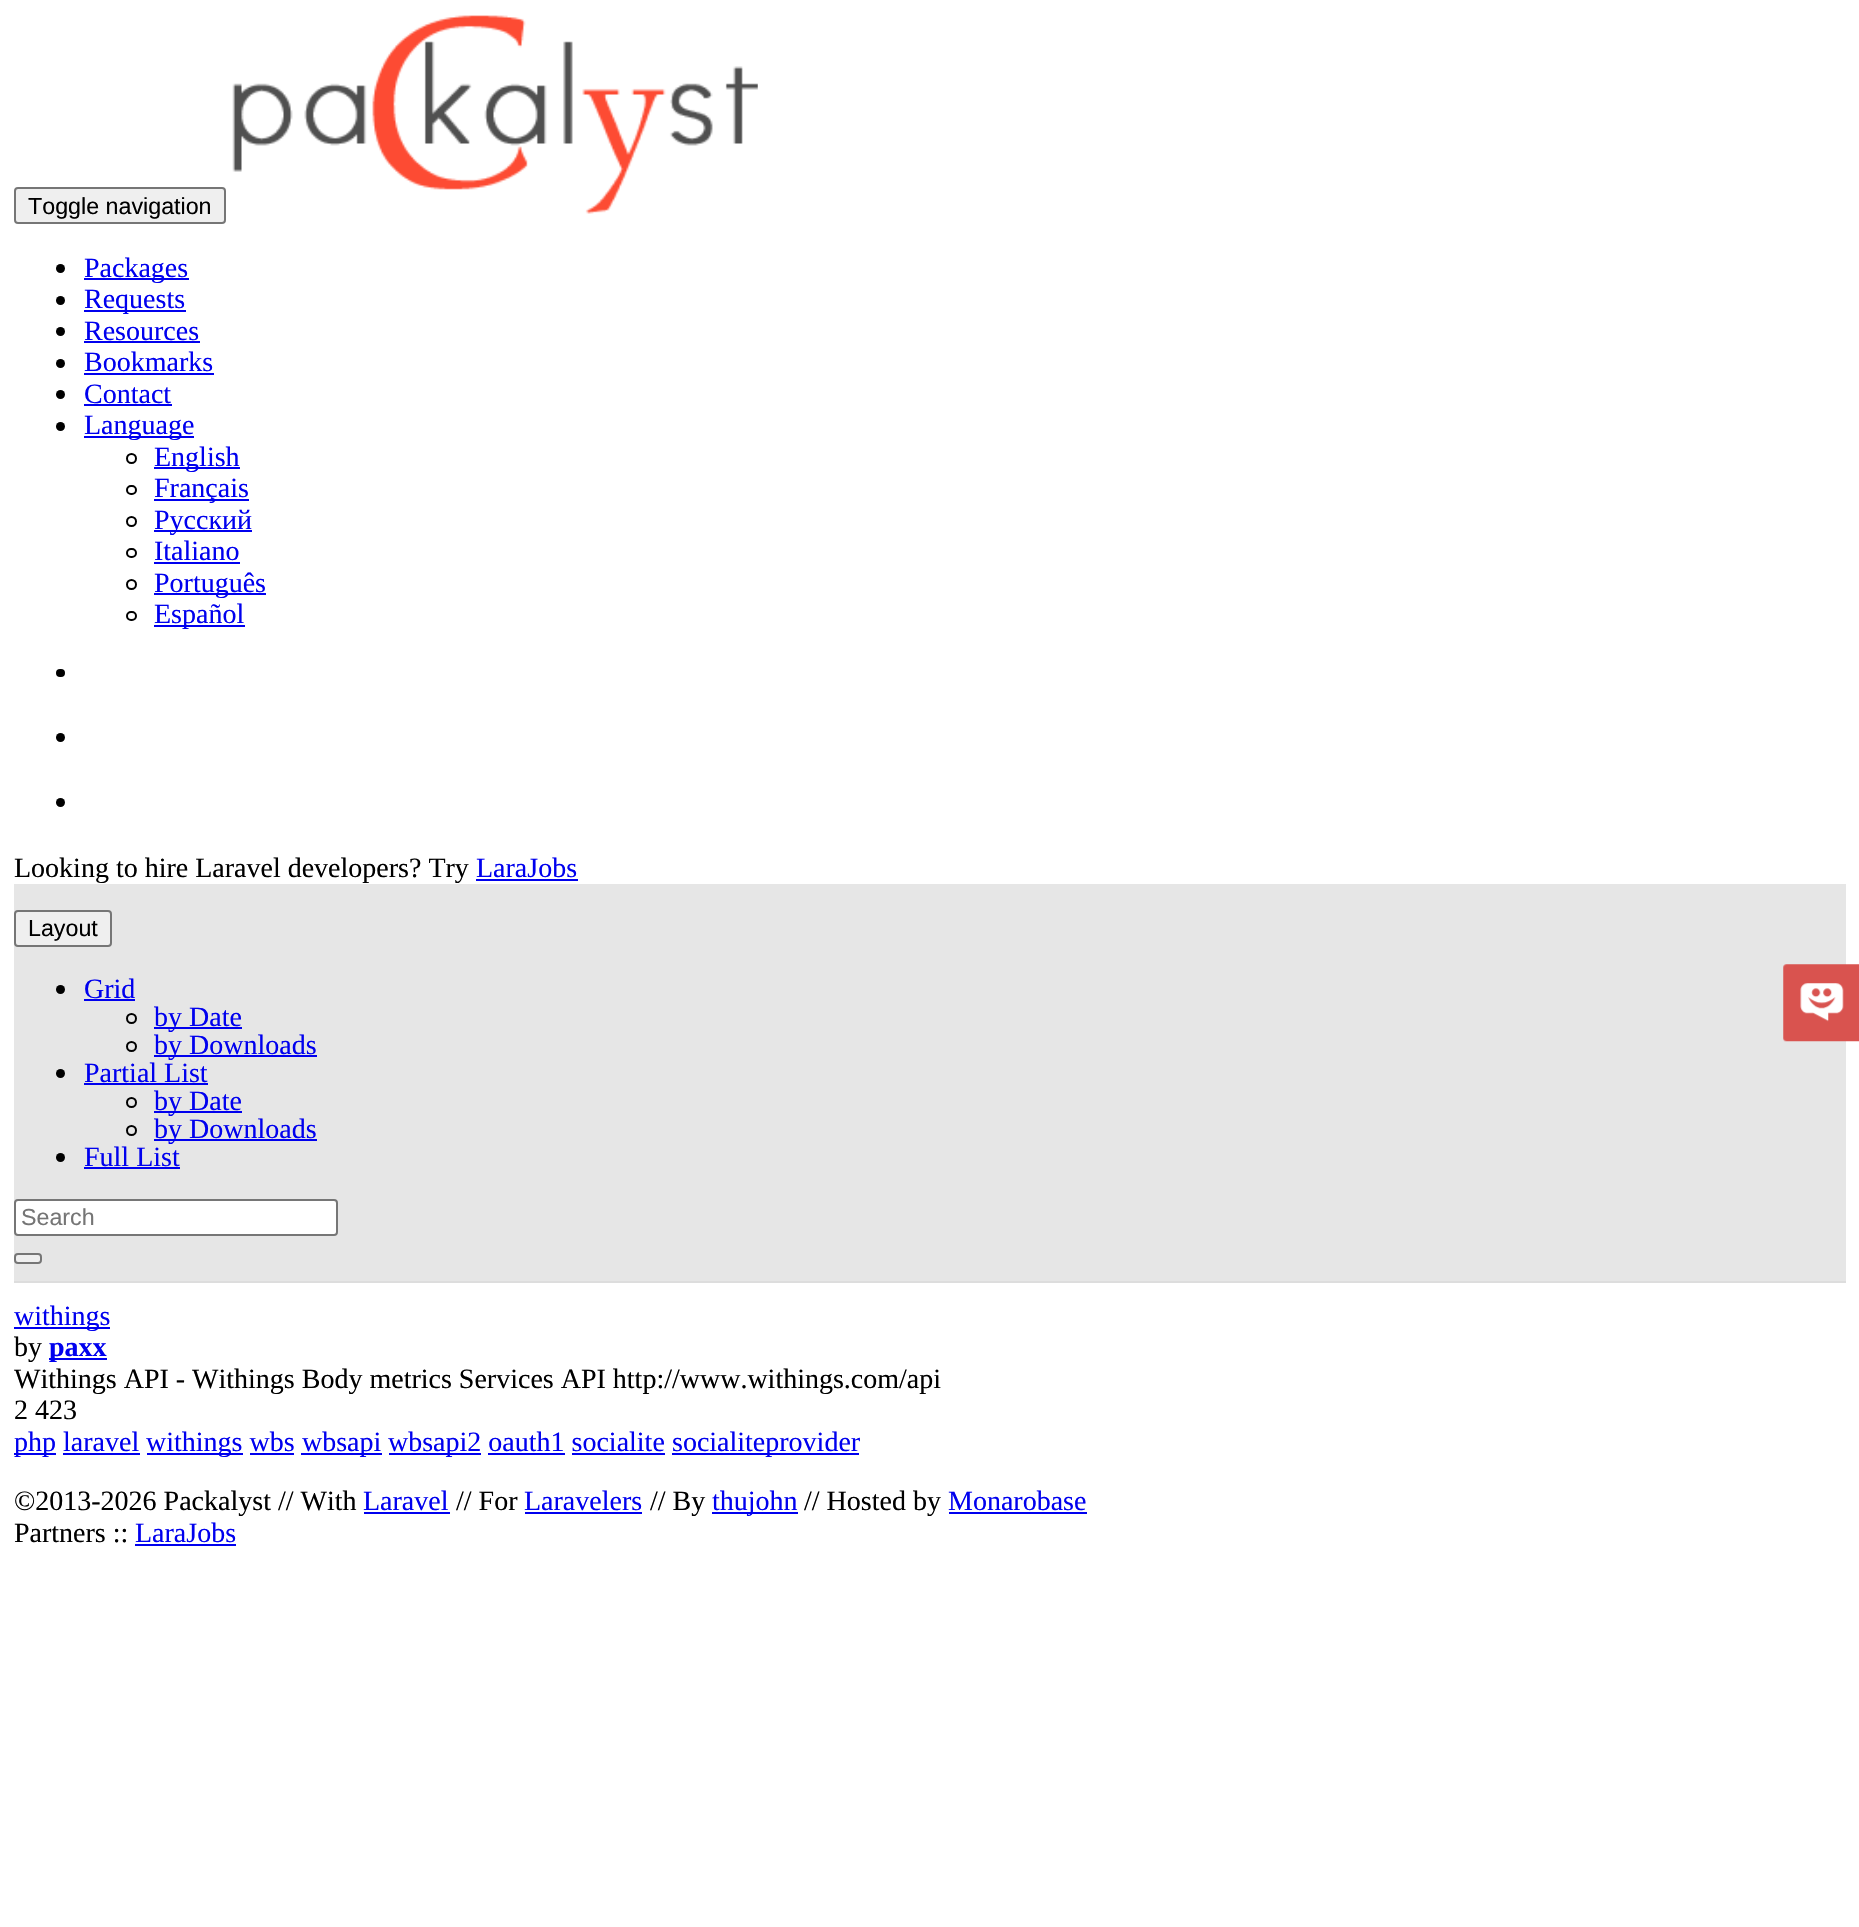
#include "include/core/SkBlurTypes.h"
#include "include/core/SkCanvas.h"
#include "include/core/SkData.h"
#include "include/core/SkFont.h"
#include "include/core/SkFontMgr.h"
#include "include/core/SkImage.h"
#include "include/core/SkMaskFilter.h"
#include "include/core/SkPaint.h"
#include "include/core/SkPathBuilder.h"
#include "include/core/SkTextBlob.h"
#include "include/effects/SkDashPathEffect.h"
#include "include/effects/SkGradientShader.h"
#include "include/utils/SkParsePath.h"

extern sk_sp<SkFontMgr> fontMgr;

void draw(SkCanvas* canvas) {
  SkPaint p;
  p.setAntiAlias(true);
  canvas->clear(SK_ColorWHITE);
  p.setColor(SkColorSetRGB(239, 239, 239));
  canvas->drawRoundRect(SkRect::MakeLTRB(15, 188, 225, 223), 3, 3, p);
  p.setStyle(SkPaint::kStroke_Style);
  p.setStrokeWidth(2);
  p.setColor(SkColorSetRGB(118, 118, 118));
  canvas->drawRoundRect(SkRect::MakeLTRB(15, 188, 225, 223), 3, 3, p);
  canvas->drawImageRect(SkImages::DeferredFromEncodedData(SkData::MakeFromFileName("images/1.png")), SkRect::MakeLTRB(232, 15, 758, 214), SkSamplingOptions());
  p.setStyle(SkPaint::kFill_Style);
  p.setColor(SK_ColorBLACK);
  canvas->drawCircle(60.5f, 268.5f, 4.5f, p);
  p.setColor(SkColorSetRGB(0, 0, 238));
  canvas->drawRect(SkRect::MakeLTRB(84, 278, 189, 280), p);
  p.setColor(SK_ColorBLACK);
  canvas->drawCircle(60.5f, 300.5f, 4.5f, p);
  p.setColor(SkColorSetRGB(0, 0, 238));
  canvas->drawRect(SkRect::MakeLTRB(84, 310, 186, 312), p);
  p.setColor(SK_ColorBLACK);
  canvas->drawCircle(60.5f, 331.5f, 4.5f, p);
  p.setColor(SkColorSetRGB(0, 0, 238));
  canvas->drawRect(SkRect::MakeLTRB(84, 341, 200, 343), p);
  p.setColor(SK_ColorBLACK);
  canvas->drawCircle(60.5f, 363.5f, 4.5f, p);
  p.setColor(SkColorSetRGB(0, 0, 238));
  canvas->drawRect(SkRect::MakeLTRB(84, 373, 214, 375), p);
  p.setColor(SK_ColorBLACK);
  canvas->drawCircle(60.5f, 394.5f, 4.5f, p);
  p.setColor(SkColorSetRGB(0, 0, 238));
  canvas->drawRect(SkRect::MakeLTRB(84, 404, 172, 406), p);
  p.setColor(SK_ColorBLACK);
  canvas->drawCircle(60.5f, 426.5f, 4.5f, p);
  p.setColor(SkColorSetRGB(0, 0, 238));
  canvas->drawRect(SkRect::MakeLTRB(84, 436, 194, 438), p);
  p.setStyle(SkPaint::kStroke_Style);
  p.setColor(SK_ColorBLACK);
  canvas->drawCircle(131.5f, 458.5f, 4.5f, p);
  p.setStyle(SkPaint::kFill_Style);
  p.setColor(SkColorSetRGB(0, 0, 238));
  canvas->drawRect(SkRect::MakeLTRB(154, 467, 240, 469), p);
  p.setStyle(SkPaint::kStroke_Style);
  p.setColor(SK_ColorBLACK);
  canvas->drawRoundRect(SkRect::MakeLTRB(127, 486, 136, 494), 4, 4, p);
  p.setStyle(SkPaint::kFill_Style);
  p.setColor(SkColorSetRGB(0, 0, 238));
  canvas->drawRect(SkRect::MakeLTRB(154, 499, 249, 501), p);
  p.setStyle(SkPaint::kStroke_Style);
  p.setColor(SK_ColorBLACK);
  canvas->drawCircle(131.5f, 521.5f, 4.5f, p);
  p.setStyle(SkPaint::kFill_Style);
  p.setColor(SkColorSetRGB(0, 0, 238));
  canvas->drawRect(SkRect::MakeLTRB(154, 530, 252, 532), p);
  p.setStyle(SkPaint::kStroke_Style);
  p.setColor(SK_ColorBLACK);
  canvas->drawRoundRect(SkRect::MakeLTRB(127, 549, 136, 557), 4, 4, p);
  p.setStyle(SkPaint::kFill_Style);
  p.setColor(SkColorSetRGB(0, 0, 238));
  canvas->drawRect(SkRect::MakeLTRB(154, 562, 240, 564), p);
  p.setStyle(SkPaint::kStroke_Style);
  p.setColor(SK_ColorBLACK);
  canvas->drawCircle(131.5f, 584.5f, 4.5f, p);
  p.setStyle(SkPaint::kFill_Style);
  p.setColor(SkColorSetRGB(0, 0, 238));
  canvas->drawRect(SkRect::MakeLTRB(154, 593, 266, 595), p);
  p.setStyle(SkPaint::kStroke_Style);
  p.setColor(SK_ColorBLACK);
  canvas->drawRoundRect(SkRect::MakeLTRB(127, 612, 136, 620), 4, 4, p);
  p.setStyle(SkPaint::kFill_Style);
  p.setColor(SkColorSetRGB(0, 0, 238));
  canvas->drawRect(SkRect::MakeLTRB(154, 625, 245, 627), p);
  p.setColor(SK_ColorBLACK);
  canvas->drawRoundRect(SkRect::MakeLTRB(56, 669, 65, 677), 4, 4, p);
  canvas->drawCircle(60.5f, 737.5f, 4.5f, p);
  canvas->drawCircle(60.5f, 802.5f, 4.5f, p);
  p.setColor(SkColorSetRGB(0, 0, 238));
  canvas->drawRect(SkRect::MakeLTRB(476, 879, 578, 881), p);
  p.setColor(SkColorSetRGB(230, 230, 230));
  canvas->drawRect(SkRect::MakeLTRB(14, 884, 1846, 1281), p);
  p.setColor(SkColorSetRGB(221, 221, 221));
  canvas->drawRect(SkRect::MakeLTRB(14, 1281, 1846, 1283), p);
  p.setColor(SkColorSetRGB(239, 239, 239));
  canvas->drawRoundRect(SkRect::MakeLTRB(15, 911, 111, 946), 3, 3, p);
  p.setStyle(SkPaint::kStroke_Style);
  p.setColor(SkColorSetRGB(118, 118, 118));
  canvas->drawRoundRect(SkRect::MakeLTRB(15, 911, 111, 946), 3, 3, p);
  p.setStyle(SkPaint::kFill_Style);
  p.setColor(SK_ColorBLACK);
  canvas->drawCircle(60.5f, 989.5f, 4.5f, p);
  p.setColor(SkColorSetRGB(0, 0, 238));
  canvas->drawRect(SkRect::MakeLTRB(84, 999, 135, 1001), p);
  p.setStyle(SkPaint::kStroke_Style);
  p.setColor(SK_ColorBLACK);
  canvas->drawCircle(131.5f, 1018.5f, 4.5f, p);
  p.setStyle(SkPaint::kFill_Style);
  p.setColor(SkColorSetRGB(0, 0, 238));
  canvas->drawRect(SkRect::MakeLTRB(154, 1027, 242, 1029), p);
  p.setStyle(SkPaint::kStroke_Style);
  p.setColor(SK_ColorBLACK);
  canvas->drawCircle(131.5f, 1046.5f, 4.5f, p);
  p.setStyle(SkPaint::kFill_Style);
  p.setColor(SkColorSetRGB(0, 0, 238));
  canvas->drawRect(SkRect::MakeLTRB(154, 1055, 317, 1057), p);
  p.setColor(SK_ColorBLACK);
  canvas->drawCircle(60.5f, 1073.5f, 4.5f, p);
  p.setColor(SkColorSetRGB(0, 0, 238));
  canvas->drawRect(SkRect::MakeLTRB(84, 1083, 208, 1085), p);
  p.setStyle(SkPaint::kStroke_Style);
  p.setColor(SK_ColorBLACK);
  canvas->drawCircle(131.5f, 1102.5f, 4.5f, p);
  p.setStyle(SkPaint::kFill_Style);
  p.setColor(SkColorSetRGB(0, 0, 238));
  canvas->drawRect(SkRect::MakeLTRB(154, 1111, 242, 1113), p);
  p.setStyle(SkPaint::kStroke_Style);
  p.setColor(SK_ColorBLACK);
  canvas->drawCircle(131.5f, 1130.5f, 4.5f, p);
  p.setStyle(SkPaint::kFill_Style);
  p.setColor(SkColorSetRGB(0, 0, 238));
  canvas->drawRect(SkRect::MakeLTRB(154, 1139, 317, 1141), p);
  p.setColor(SK_ColorBLACK);
  canvas->drawCircle(60.5f, 1157.5f, 4.5f, p);
  p.setColor(SkColorSetRGB(0, 0, 238));
  canvas->drawRect(SkRect::MakeLTRB(84, 1167, 180, 1169), p);
  p.setColor(SK_ColorWHITE);
  canvas->drawRoundRect(SkRect::MakeLTRB(15, 1200, 337, 1235), 3, 3, p);
  p.setStyle(SkPaint::kStroke_Style);
  p.setColor(SkColorSetRGB(118, 118, 118));
  canvas->drawRoundRect(SkRect::MakeLTRB(15, 1200, 337, 1235), 3, 3, p);
  p.setStyle(SkPaint::kFill_Style);
  p.setColor(SkColorSetRGB(239, 239, 239));
  canvas->drawRoundRect(SkRect::MakeLTRB(15, 1254, 41, 1263), 3, 3, p);
  p.setStyle(SkPaint::kStroke_Style);
  p.setColor(SkColorSetRGB(118, 118, 118));
  canvas->drawRoundRect(SkRect::MakeLTRB(15, 1254, 41, 1263), 3, 3, p);
  p.setStyle(SkPaint::kFill_Style);
  p.setColor(SkColorSetRGB(0, 0, 238));
  canvas->drawRect(SkRect::MakeLTRB(14, 1327, 110, 1329), p);
  canvas->drawRect(SkRect::MakeLTRB(49, 1358, 107, 1360), p);
  canvas->drawRect(SkRect::MakeLTRB(14, 1453, 56, 1455), p);
  canvas->drawRect(SkRect::MakeLTRB(147, 1453, 243, 1455), p);
  canvas->drawRect(SkRect::MakeLTRB(301, 1453, 382, 1455), p);
  canvas->drawRect(SkRect::MakeLTRB(389, 1453, 481, 1455), p);
  canvas->drawRect(SkRect::MakeLTRB(672, 1453, 859, 1455), p);
  canvas->drawRect(SkRect::MakeLTRB(63, 1453, 140, 1455), p);
  canvas->drawRect(SkRect::MakeLTRB(250, 1453, 294, 1455), p);
  canvas->drawRect(SkRect::MakeLTRB(488, 1453, 565, 1455), p);
  canvas->drawRect(SkRect::MakeLTRB(572, 1453, 665, 1455), p);
  canvas->drawImageRect(SkImages::DeferredFromEncodedData(SkData::MakeFromFileName("images/2.png")), SkRect::MakeLTRB(1783, 964, 1859, 1042), SkSamplingOptions());
  canvas->drawRect(SkRect::MakeLTRB(364, 1512, 450, 1514), p);
  canvas->drawRect(SkRect::MakeLTRB(525, 1512, 642, 1514), p);
  canvas->drawRect(SkRect::MakeLTRB(712, 1512, 798, 1514), p);
  canvas->drawRect(SkRect::MakeLTRB(949, 1512, 1087, 1514), p);
  canvas->drawRect(SkRect::MakeLTRB(135, 1544, 236, 1546), p);
  SkFont font1(fontMgr->matchFamilyStyle("Liberation Sans", SkFontStyle::Normal()), 23.25f);
  font1.setSubpixel(true);
  p.setColor(SK_ColorBLACK);
  canvas->drawString("Toggle navigation", 28, 214, font1, p);
  SkFont font2(fontMgr->matchFamilyStyle("Liberation Serif", SkFontStyle::Normal()), 28);
  font2.setSubpixel(true);
  p.setColor(SkColorSetRGB(0, 0, 238));
  canvas->drawString("Packages", 84, 277, font2, p);
  canvas->drawString("Requests", 84, 308, font2, p);
  canvas->drawString("Resources", 84, 340, font2, p);
  canvas->drawString("Bookmarks", 84, 371, font2, p);
  canvas->drawString("Contact", 84, 403, font2, p);
  canvas->drawString("Language", 84, 434, font2, p);
  canvas->drawString("English", 154, 466, font2, p);
  canvas->drawString("Français", 154, 497, font2, p);
  canvas->drawString("Русский", 154, 529, font2, p);
  canvas->drawString("Italiano", 154, 560, font2, p);
  canvas->drawString("Português", 154, 592, font2, p);
  canvas->drawString("Español", 154, 623, font2, p);
  p.setColor(SK_ColorBLACK);
  canvas->drawString("Looking to hire Laravel developers? Try", 14, 877, font2, p);
  p.setColor(SkColorSetRGB(0, 0, 238));
  canvas->drawString("LaraJobs", 476, 877, font2, p);
  p.setColor(SK_ColorBLACK);
  canvas->drawString("Layout", 28, 936, font1, p);
  p.setColor(SkColorSetRGB(0, 0, 238));
  canvas->drawString("Grid", 84, 998, font2, p);
  canvas->drawString("by Date", 154, 1026, font2, p);
  canvas->drawString("by Downloads", 154, 1054, font2, p);
  canvas->drawString("Partial List", 84, 1082, font2, p);
  canvas->drawString("by Date", 154, 1110, font2, p);
  canvas->drawString("by Downloads", 154, 1138, font2, p);
  canvas->drawString("Full List", 84, 1166, font2, p);
  p.setColor(SkColorSetRGB(117, 117, 117));
  canvas->drawString("Search", 21, 1225, font1, p);
  p.setColor(SkColorSetRGB(0, 0, 238));
  canvas->drawString("withings", 14, 1325, font2, p);
  p.setColor(SK_ColorBLACK);
  canvas->drawString("by", 14, 1356, font2, p);
  SkFont font3(fontMgr->matchFamilyStyle("Liberation Serif", SkFontStyle::Bold()), 28);
  font3.setSubpixel(true);
  p.setColor(SkColorSetRGB(0, 0, 238));
  canvas->drawString("paxx", 49, 1356, font3, p);
  p.setColor(SK_ColorBLACK);
  canvas->drawString("Withings API - Withings Body metrics Services API http://www.withings.com/api", 14, 1388, font2, p);
  canvas->drawString("2 423", 14, 1419, font2, p);
  p.setColor(SkColorSetRGB(0, 0, 238));
  canvas->drawString("php laravel", 14, 1451, font2, p);
  canvas->drawString("withings wbs", 146, 1451, font2, p);
  canvas->drawString("wbsapi", 302, 1451, font2, p);
  canvas->drawString("wbsapi2 oauth1 socialite", 388, 1451, font2, p);
  canvas->drawString("socialiteprovider", 672, 1451, font2, p);
  p.setColor(SK_ColorBLACK);
  canvas->drawString("©2013-2026 Packalyst // With", 14, 1510, font2, p);
  p.setColor(SkColorSetRGB(0, 0, 238));
  canvas->drawString("Laravel", 363, 1510, font2, p);
  p.setColor(SK_ColorBLACK);
  canvas->drawString("// For", 456, 1510, font2, p);
  p.setColor(SkColorSetRGB(0, 0, 238));
  canvas->drawString("Laravelers", 524, 1510, font2, p);
  p.setColor(SK_ColorBLACK);
  canvas->drawString("// By", 650, 1510, font2, p);
  p.setColor(SkColorSetRGB(0, 0, 238));
  canvas->drawString("thujohn", 712, 1510, font2, p);
  p.setColor(SK_ColorBLACK);
  canvas->drawString("// Hosted by", 804, 1510, font2, p);
  p.setColor(SkColorSetRGB(0, 0, 238));
  canvas->drawString("Monarobase", 948, 1510, font2, p);
  p.setColor(SK_ColorBLACK);
  canvas->drawString("Partners ::", 14, 1542, font2, p);
  p.setColor(SkColorSetRGB(0, 0, 238));
  canvas->drawString("LaraJobs", 135, 1542, font2, p);
}
